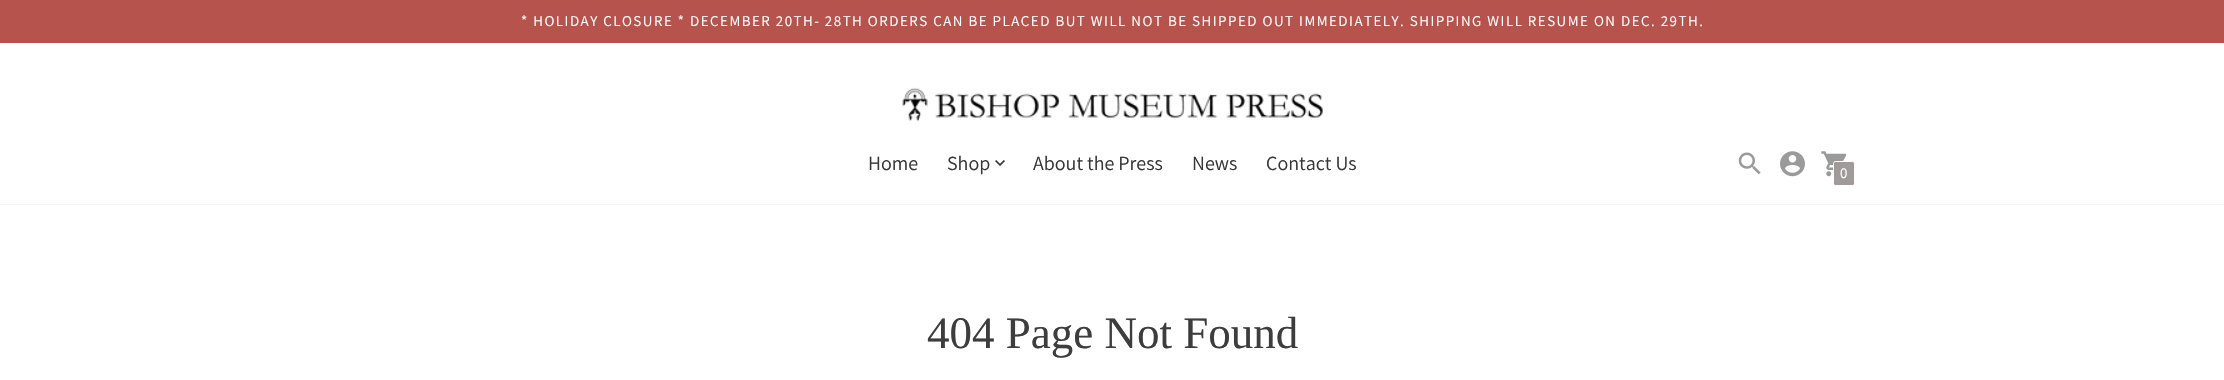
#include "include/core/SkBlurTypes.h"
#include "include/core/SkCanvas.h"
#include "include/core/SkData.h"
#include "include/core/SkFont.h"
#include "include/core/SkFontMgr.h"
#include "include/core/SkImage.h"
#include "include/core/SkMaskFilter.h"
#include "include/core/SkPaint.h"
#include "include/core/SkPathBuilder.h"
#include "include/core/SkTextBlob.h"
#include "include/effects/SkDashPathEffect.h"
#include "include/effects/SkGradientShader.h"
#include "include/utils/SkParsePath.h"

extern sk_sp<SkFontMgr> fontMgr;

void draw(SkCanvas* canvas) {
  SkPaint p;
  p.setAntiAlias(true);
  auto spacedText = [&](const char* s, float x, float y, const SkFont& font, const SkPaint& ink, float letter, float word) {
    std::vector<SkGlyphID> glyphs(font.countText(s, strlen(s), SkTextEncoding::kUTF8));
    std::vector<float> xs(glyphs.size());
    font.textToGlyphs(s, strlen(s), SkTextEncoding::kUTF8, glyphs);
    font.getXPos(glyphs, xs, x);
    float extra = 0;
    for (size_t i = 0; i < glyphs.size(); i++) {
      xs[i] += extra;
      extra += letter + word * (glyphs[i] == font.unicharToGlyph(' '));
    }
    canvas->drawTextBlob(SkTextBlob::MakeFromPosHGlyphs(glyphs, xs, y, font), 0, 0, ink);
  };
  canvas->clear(SK_ColorWHITE);
  p.setColor(SkColorSetRGB(182, 83, 76));
  canvas->drawRect(SkRect::MakeLTRB(0, 0, 2224, 43), p);
  p.setColor(SkColorSetRGB(247, 245, 245));
  canvas->drawRect(SkRect::MakeLTRB(0, 204, 2224, 205), p);
  canvas->drawImageRect(SkImages::DeferredFromEncodedData(SkData::MakeFromFileName("images/1.png")), SkRect::MakeLTRB(902, 87, 1323, 122), SkSamplingOptions());
  canvas->drawImageRect(SkImages::DeferredFromEncodedData(SkData::MakeFromFileName("images/2.png")), SkRect::MakeLTRB(995, 160, 1005, 166), SkSamplingOptions());
  canvas->drawImageRect(SkImages::DeferredFromEncodedData(SkData::MakeFromFileName("images/3.png")), SkRect::MakeLTRB(1738, 152, 1761, 175), SkSamplingOptions());
  canvas->drawImageRect(SkImages::DeferredFromEncodedData(SkData::MakeFromFileName("images/4.png")), SkRect::MakeLTRB(1780, 151, 1805, 177), SkSamplingOptions());
  canvas->drawImageRect(SkImages::DeferredFromEncodedData(SkData::MakeFromFileName("images/5.png")), SkRect::MakeLTRB(1821, 151, 1847, 177), SkSamplingOptions());
  p.setColor(SkColorSetRGB(160, 155, 154));
  canvas->drawRoundRect(SkRect::MakeLTRB(1833.5f, 161.5f, 1854.5f, 185.5f), 2, 2, p);
  p.setStyle(SkPaint::kStroke_Style);
  p.setStrokeWidth(1);
  p.setColor(SK_ColorWHITE);
  canvas->drawRoundRect(SkRect::MakeLTRB(1833.5f, 161.5f, 1854.5f, 185.5f), 2, 2, p);
  SkFont font1(fontMgr->matchFamilyStyle("Assistant", SkFontStyle::Normal()), 15);
  font1.setSubpixel(true);
  p.setStyle(SkPaint::kFill_Style);
  spacedText("* HOLIDAY CLOSURE * DECEMBER 20TH- 28TH ORDERS CAN BE PLACED BUT WILL NOT BE SHIPPED OUT IMMEDIATELY. SHIPPING WILL RESUME ON DEC. 29TH.", 521, 26, font1, p, 1.5f, 0);
  SkFont font2(fontMgr->matchFamilyStyle("Assistant", SkFontStyle::Normal()), 20);
  font2.setSubpixel(true);
  p.setColor(SkColorSetRGB(54, 54, 54));
  canvas->drawString("Home", 868, 170, font2, p);
  canvas->drawString("Shop", 947, 170, font2, p);
  canvas->drawString("About the Press", 1033, 170, font2, p);
  canvas->drawString("News", 1192, 170, font2, p);
  canvas->drawString("Contact Us", 1266, 170, font2, p);
  p.setColor(SK_ColorWHITE);
  canvas->drawString("0", 1840, 178, font1, p);
  SkFont font3(fontMgr->matchFamilyStyle("Liberation Serif", SkFontStyle::Normal()), 45);
  font3.setSubpixel(true);
  p.setColor(SkColorSetRGB(61, 61, 61));
  canvas->drawString("404 Page Not Found", 927, 348, font3, p);
}
